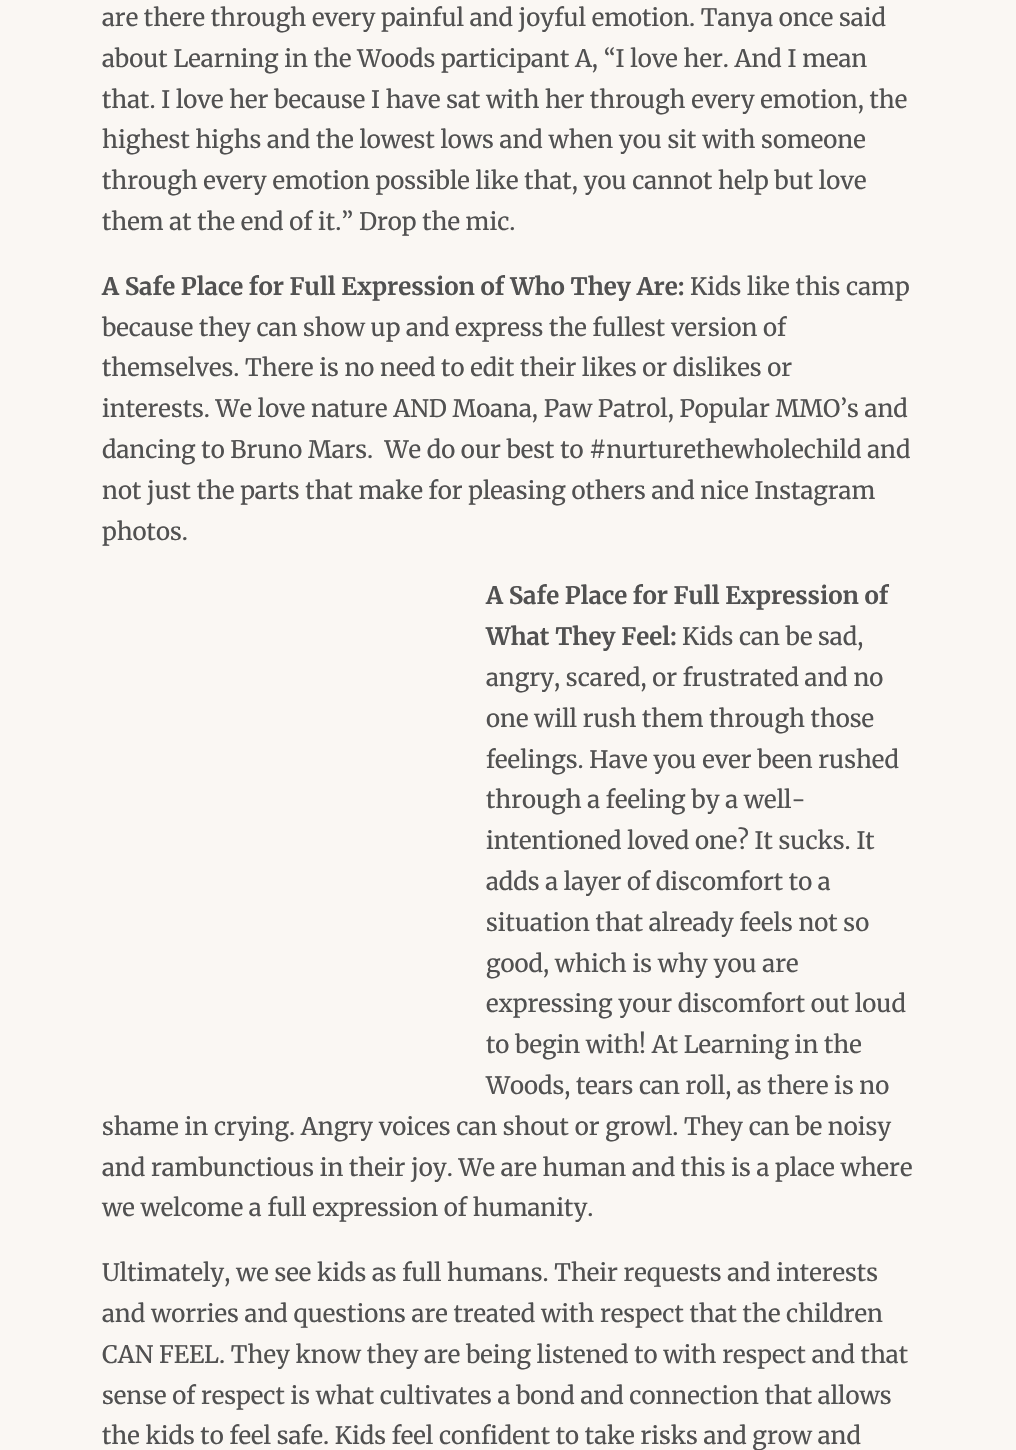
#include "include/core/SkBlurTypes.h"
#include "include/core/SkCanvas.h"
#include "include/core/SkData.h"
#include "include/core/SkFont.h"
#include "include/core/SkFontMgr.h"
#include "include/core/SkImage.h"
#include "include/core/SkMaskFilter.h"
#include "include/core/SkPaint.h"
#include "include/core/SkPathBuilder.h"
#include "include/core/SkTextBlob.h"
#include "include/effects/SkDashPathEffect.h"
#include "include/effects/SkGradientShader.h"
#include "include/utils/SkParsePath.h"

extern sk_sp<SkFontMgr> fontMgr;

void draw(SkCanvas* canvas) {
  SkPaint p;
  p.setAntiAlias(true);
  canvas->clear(SkColorSetRGB(250, 247, 243));
  SkFont font1(fontMgr->matchFamilyStyle("Merriweather", SkFontStyle(300, SkFontStyle::kNormal_Width, SkFontStyle::kUpright_Slant)), 24);
  font1.setSubpixel(true);
  p.setColor(SkColorSetRGB(81, 81, 81));
  canvas->drawString("are there through every painful and joyful emotion. Tanya once said", 102, 26, font1, p);
  canvas->drawString("about Learning in the Woods participant A, “I love her. And I mean", 102, 67, font1, p);
  canvas->drawString("that. I love her because I have sat with her through every emotion, the", 102, 108, font1, p);
  canvas->drawString("highest highs and the lowest lows and when you sit with someone", 102, 148, font1, p);
  canvas->drawString("through every emotion possible like that, you cannot help but love", 102, 189, font1, p);
  canvas->drawString("them at the end of it.” Drop the mic.", 102, 230, font1, p);
  SkFont font2(fontMgr->matchFamilyStyle("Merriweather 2", SkFontStyle(300, SkFontStyle::kNormal_Width, SkFontStyle::kUpright_Slant)), 24);
  font2.setSubpixel(true);
  canvas->drawString("A Safe Place for Full Expression of Who They Are:", 102, 295, font2, p);
  canvas->drawString("Kids like this camp", 690, 295, font1, p);
  canvas->drawString("because they can show up and express the fullest version of", 102, 336, font1, p);
  canvas->drawString("themselves. There is no need to edit their likes or dislikes or", 102, 376, font1, p);
  canvas->drawString("interests. We love nature AND Moana, Paw Patrol, Popular MMO’s and", 102, 417, font1, p);
  canvas->drawString("dancing to Bruno Mars.  We do our best to #nurturethewholechild and", 102, 458, font1, p);
  canvas->drawString("not just the parts that make for pleasing others and nice Instagram", 102, 499, font1, p);
  canvas->drawString("photos.", 102, 540, font1, p);
  canvas->drawString("A Safe Place for Full Expression of", 486, 604, font2, p);
  canvas->drawString("What They Feel:", 486, 645, font2, p);
  canvas->drawString("Kids can be sad,", 682, 645, font1, p);
  canvas->drawString("angry, scared, or frustrated and no", 486, 686, font1, p);
  canvas->drawString("one will rush them through those", 486, 727, font1, p);
  canvas->drawString("feelings. Have you ever been rushed", 486, 768, font1, p);
  canvas->drawString("through a feeling by a well-", 486, 808, font1, p);
  canvas->drawString("intentioned loved one? It sucks. It", 486, 849, font1, p);
  canvas->drawString("adds a layer of discomfort to a", 486, 890, font1, p);
  canvas->drawString("situation that already feels not so", 486, 931, font1, p);
  canvas->drawString("good, which is why you are", 486, 972, font1, p);
  canvas->drawString("expressing your discomfort out loud", 486, 1012, font1, p);
  canvas->drawString("to begin with! At Learning in the", 486, 1053, font1, p);
  canvas->drawString("Woods, tears can roll, as there is no", 486, 1094, font1, p);
  canvas->drawString("shame in crying. Angry voices can shout or growl. They can be noisy", 102, 1135, font1, p);
  canvas->drawString("and rambunctious in their joy. We are human and this is a place where", 102, 1176, font1, p);
  canvas->drawString("we welcome a full expression of humanity.", 102, 1216, font1, p);
  canvas->drawString("Ultimately, we see kids as full humans. Their requests and interests", 102, 1281, font1, p);
  canvas->drawString("and worries and questions are treated with respect that the children", 102, 1322, font1, p);
  canvas->drawString("CAN FEEL. They know they are being listened to with respect and that", 102, 1363, font1, p);
  canvas->drawString("sense of respect is what cultivates a bond and connection that allows", 102, 1404, font1, p);
  canvas->drawString("the kids to feel safe. Kids feel confident to take risks and grow and", 102, 1444, font1, p);
}
